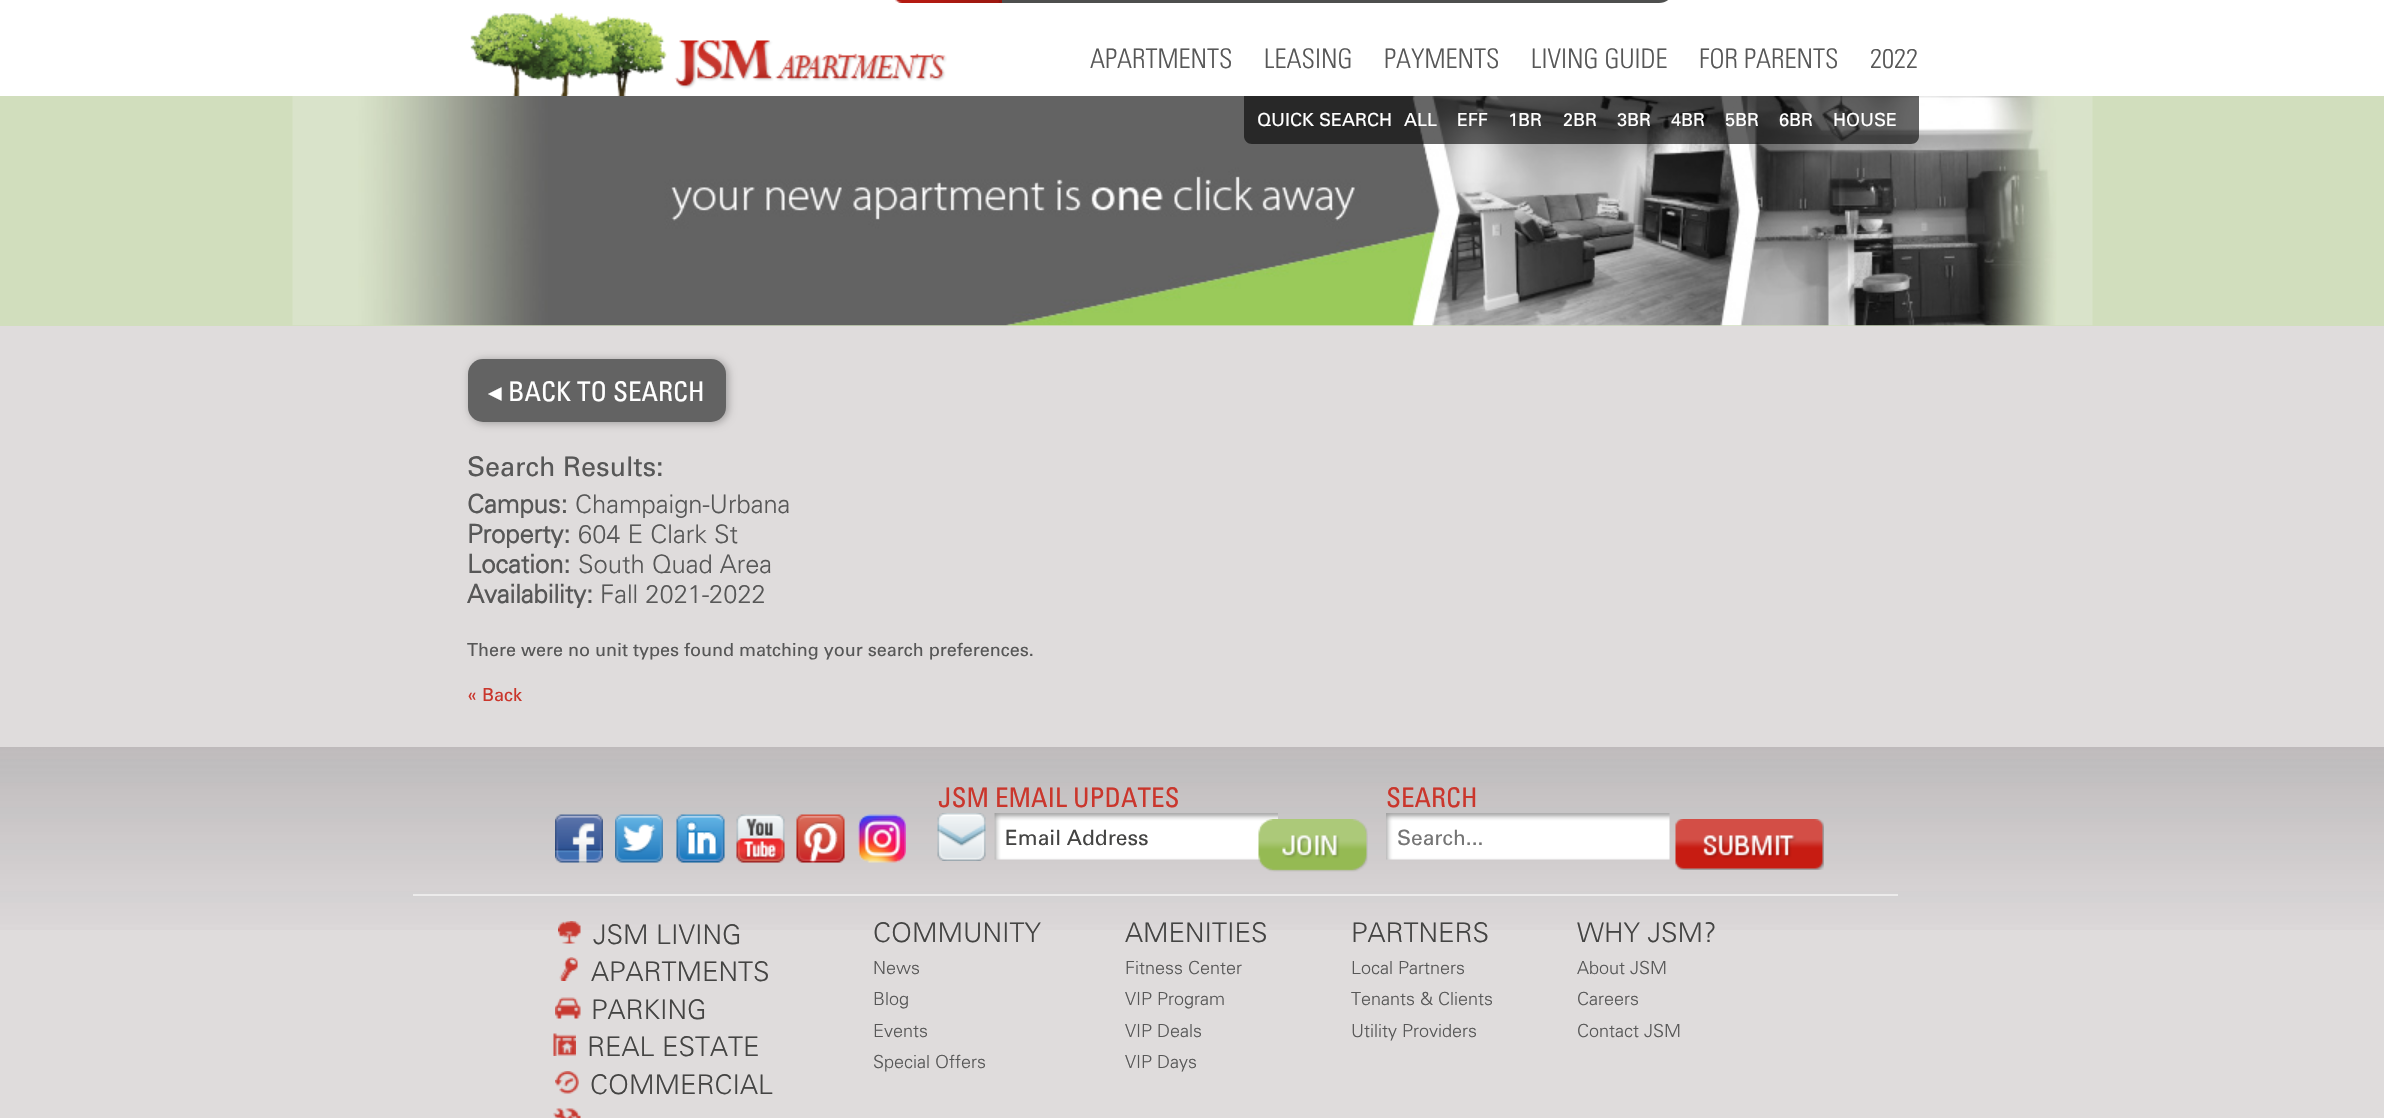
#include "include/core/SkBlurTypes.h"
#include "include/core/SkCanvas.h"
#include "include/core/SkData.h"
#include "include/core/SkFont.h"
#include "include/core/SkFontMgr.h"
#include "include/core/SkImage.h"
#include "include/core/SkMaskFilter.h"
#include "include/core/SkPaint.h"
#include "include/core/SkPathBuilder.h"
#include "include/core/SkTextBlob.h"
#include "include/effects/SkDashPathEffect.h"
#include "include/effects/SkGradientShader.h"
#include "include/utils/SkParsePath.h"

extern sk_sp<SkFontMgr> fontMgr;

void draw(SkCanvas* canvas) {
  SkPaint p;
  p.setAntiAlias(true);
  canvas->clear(SkColorSetRGB(223, 220, 220));
  p.setColor(SK_ColorWHITE);
  canvas->drawRect(SkRect::MakeLTRB(0, 0, 2384, 96), p);
  p.setColor(SkColorSetRGB(78, 79, 78));
  canvas->drawPath(SkPathBuilder().moveTo(894, -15).lineTo(1674, -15).lineTo(1674, -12).cubicTo(1674, -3.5f, 1667.5f, 3, 1659, 3).lineTo(909, 3).cubicTo(900.5f, 3, 894, -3.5f, 894, -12).close().detach(), p);
  canvas->drawImageRect(SkImages::DeferredFromEncodedData(SkData::MakeFromFileName("images/1.png")), SkRect::MakeLTRB(895, 0, 1002, 3), SkSamplingOptions());
  canvas->drawImageRect(SkImages::DeferredFromEncodedData(SkData::MakeFromFileName("images/2.png")), SkRect::MakeLTRB(470, 12, 947, 96), SkSamplingOptions());
  p.setColor(SkColorSetRGB(209, 222, 189));
  canvas->drawRect(SkRect::MakeLTRB(0, 96, 2384, 326), p);
  canvas->drawImageRect(SkImages::DeferredFromEncodedData(SkData::MakeFromFileName("images/3.png")), SkRect::MakeLTRB(292, 96, 2093, 326), SkSamplingOptions());
  p.setColor(SkColorSetARGB(153, 0, 0, 0));
  canvas->drawPath(SkPathBuilder().moveTo(1244, 96).lineTo(1919, 96).lineTo(1919, 136).cubicTo(1919, 140.5f, 1915.5f, 144, 1911, 144).lineTo(1252, 144).cubicTo(1247.5f, 144, 1244, 140.5f, 1244, 136).close().detach(), p);
  p.setColor(SkColorSetARGB(77, 0, 0, 0));
  p.setMaskFilter(SkMaskFilter::MakeBlur(kNormal_SkBlurStyle, 4));
  canvas->drawRoundRect(SkRect::MakeLTRB(470, 360, 728, 423), 15, 15, p);
  p.setMaskFilter(nullptr);
  p.setColor(SkColorSetRGB(99, 99, 99));
  canvas->drawRoundRect(SkRect::MakeLTRB(468, 359, 726, 422), 15, 15, p);
  canvas->drawImageRect(SkImages::DeferredFromEncodedData(SkData::MakeFromFileName("images/4.png")), SkRect::MakeLTRB(0, 747, 2384, 930), SkSamplingOptions());
  canvas->drawImageRect(SkImages::DeferredFromEncodedData(SkData::MakeFromFileName("images/5.png")), SkRect::MakeLTRB(555, 814, 603, 863), SkSamplingOptions());
  canvas->drawImageRect(SkImages::DeferredFromEncodedData(SkData::MakeFromFileName("images/6.png")), SkRect::MakeLTRB(615, 814, 663, 863), SkSamplingOptions());
  canvas->drawImageRect(SkImages::DeferredFromEncodedData(SkData::MakeFromFileName("images/7.png")), SkRect::MakeLTRB(676, 814, 725, 863), SkSamplingOptions());
  canvas->drawImageRect(SkImages::DeferredFromEncodedData(SkData::MakeFromFileName("images/8.png")), SkRect::MakeLTRB(736, 814, 785, 863), SkSamplingOptions());
  canvas->drawImageRect(SkImages::DeferredFromEncodedData(SkData::MakeFromFileName("images/9.png")), SkRect::MakeLTRB(796, 814, 845, 863), SkSamplingOptions());
  canvas->drawImageRect(SkImages::DeferredFromEncodedData(SkData::MakeFromFileName("images/10.png")), SkRect::MakeLTRB(858, 814, 906, 863), SkSamplingOptions());
  canvas->drawImageRect(SkImages::DeferredFromEncodedData(SkData::MakeFromFileName("images/11.png")), SkRect::MakeLTRB(937, 813, 986, 861), SkSamplingOptions());
  canvas->drawImageRect(SkImages::DeferredFromEncodedData(SkData::MakeFromFileName("images/12.png")), SkRect::MakeLTRB(994, 813, 1278, 860), SkSamplingOptions());
  canvas->drawImageRect(SkImages::DeferredFromEncodedData(SkData::MakeFromFileName("images/13.png")), SkRect::MakeLTRB(1258, 819, 1368, 872), SkSamplingOptions());
  canvas->drawImageRect(SkImages::DeferredFromEncodedData(SkData::MakeFromFileName("images/14.png")), SkRect::MakeLTRB(1386, 813, 1670, 860), SkSamplingOptions());
  canvas->drawImageRect(SkImages::DeferredFromEncodedData(SkData::MakeFromFileName("images/15.png")), SkRect::MakeLTRB(1675, 819, 1824, 870), SkSamplingOptions());
  p.setColor(SkColorSetRGB(236, 235, 235));
  canvas->drawRect(SkRect::MakeLTRB(413, 894, 1898, 896), p);
  canvas->drawImageRect(SkImages::DeferredFromEncodedData(SkData::MakeFromFileName("images/16.png")), SkRect::MakeLTRB(558, 921, 581, 944), SkSamplingOptions());
  canvas->drawImageRect(SkImages::DeferredFromEncodedData(SkData::MakeFromFileName("images/17.png")), SkRect::MakeLTRB(559, 957, 578, 981), SkSamplingOptions());
  canvas->drawImageRect(SkImages::DeferredFromEncodedData(SkData::MakeFromFileName("images/18.png")), SkRect::MakeLTRB(555, 997, 581, 1019), SkSamplingOptions());
  canvas->drawImageRect(SkImages::DeferredFromEncodedData(SkData::MakeFromFileName("images/19.png")), SkRect::MakeLTRB(553, 1033, 576, 1056), SkSamplingOptions());
  canvas->drawImageRect(SkImages::DeferredFromEncodedData(SkData::MakeFromFileName("images/20.png")), SkRect::MakeLTRB(555, 1071, 579, 1094), SkSamplingOptions());
  canvas->drawImageRect(SkImages::DeferredFromEncodedData(SkData::MakeFromFileName("images/21.png")), SkRect::MakeLTRB(553, 1108, 581, 1118), SkSamplingOptions());
  SkFont font1(fontMgr->matchFamilyStyle("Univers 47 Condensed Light", SkFontStyle(300, SkFontStyle::kNormal_Width, SkFontStyle::kUpright_Slant)), 27);
  font1.setSubpixel(true);
  p.setColor(SkColorSetRGB(87, 87, 87));
  canvas->drawString("APARTMENTS", 1090, 68, font1, p);
  canvas->drawString("LEASING", 1264, 68, font1, p);
  canvas->drawString("PAYMENTS", 1384, 68, font1, p);
  canvas->drawString("LIVING GUIDE", 1531, 68, font1, p);
  canvas->drawString("FOR PARENTS", 1699, 68, font1, p);
  canvas->drawString("2022", 1870, 68, font1, p);
  SkFont font2(fontMgr->matchFamilyStyle("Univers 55", SkFontStyle(500, SkFontStyle::kNormal_Width, SkFontStyle::kUpright_Slant)), 18);
  font2.setSubpixel(true);
  p.setColor(SK_ColorWHITE);
  canvas->drawString("QUICK SEARCH", 1257, 126, font2, p);
  canvas->drawString("ALL", 1404, 126, font2, p);
  canvas->drawString("EFF", 1457, 126, font2, p);
  canvas->drawString("1BR", 1508, 126, font2, p);
  canvas->drawString("2BR", 1563, 126, font2, p);
  canvas->drawString("3BR", 1617, 126, font2, p);
  canvas->drawString("4BR", 1671, 126, font2, p);
  canvas->drawString("5BR", 1725, 126, font2, p);
  canvas->drawString("6BR", 1779, 126, font2, p);
  canvas->drawString("HOUSE", 1833, 126, font2, p);
  SkFont font3(fontMgr->matchFamilyStyle("DejaVu Sans", SkFontStyle::Normal()), 27);
  font3.setSubpixel(true);
  canvas->drawString("◂", 488, 401, font3, p);
  SkFont font4(fontMgr->matchFamilyStyle("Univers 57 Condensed", SkFontStyle(500, SkFontStyle::kNormal_Width, SkFontStyle::kUpright_Slant)), 27);
  font4.setSubpixel(true);
  canvas->drawString("BACK TO SEARCH", 508, 401, font4, p);
  SkFont font5(fontMgr->matchFamilyStyle("Univers 55", SkFontStyle(500, SkFontStyle::kNormal_Width, SkFontStyle::kUpright_Slant)), 27);
  font5.setSubpixel(true);
  p.setColor(SkColorSetRGB(87, 87, 87));
  canvas->drawString("Search Results:", 467, 476, font5, p);
  SkFont font6(fontMgr->matchFamilyStyle("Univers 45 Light", SkFontStyle::Bold()), 25.5f);
  font6.setSubpixel(true);
  canvas->drawString("Campus:", 467, 513, font6, p);
  SkFont font7(fontMgr->matchFamilyStyle("Univers 45 Light", SkFontStyle(300, SkFontStyle::kNormal_Width, SkFontStyle::kUpright_Slant)), 25.5f);
  font7.setSubpixel(true);
  canvas->drawString("Champaign-Urbana", 575, 513, font7, p);
  canvas->drawString("Property:", 467, 543, font6, p);
  canvas->drawString("604 E Clark St", 578, 543, font7, p);
  canvas->drawString("Location:", 467, 573, font6, p);
  canvas->drawString("South Quad Area", 578, 573, font7, p);
  canvas->drawString("Availability:", 467, 603, font6, p);
  canvas->drawString("Fall 2021-2022", 600, 603, font7, p);
  canvas->drawString("There were no unit types found matching your search preferences.", 467, 656, font2, p);
  p.setColor(SkColorSetRGB(202, 54, 44));
  canvas->drawString("« Back", 467, 701, font2, p);
  canvas->drawString("JSM EMAIL UPDATES", 938, 807, font4, p);
  SkFont font8(fontMgr->matchFamilyStyle("Univers 55", SkFontStyle(500, SkFontStyle::kNormal_Width, SkFontStyle::kUpright_Slant)), 21);
  font8.setSubpixel(true);
  p.setColor(SkColorSetRGB(68, 68, 67));
  canvas->drawString("Email Address", 1005, 845, font8, p);
  p.setColor(SkColorSetRGB(202, 54, 44));
  canvas->drawString("SEARCH", 1386, 807, font4, p);
  p.setColor(SkColorSetRGB(117, 117, 117));
  canvas->drawString("Search...", 1397, 845, font8, p);
  SkFont font9(fontMgr->matchFamilyStyle("Univers 45 Light", SkFontStyle(300, SkFontStyle::kNormal_Width, SkFontStyle::kUpright_Slant)), 27);
  font9.setSubpixel(true);
  p.setColor(SkColorSetRGB(68, 68, 67));
  canvas->drawString("JSM LIVING", 593, 944, font9, p);
  canvas->drawString("APARTMENTS", 591, 981, font9, p);
  canvas->drawString("PARKING", 591, 1019, font9, p);
  canvas->drawString("REAL ESTATE", 587, 1056, font9, p);
  canvas->drawString("COMMERCIAL", 590, 1094, font9, p);
  canvas->drawString("COMMUNITY", 873, 942, font9, p);
  SkFont font10(fontMgr->matchFamilyStyle("Univers 45 Light", SkFontStyle(300, SkFontStyle::kNormal_Width, SkFontStyle::kUpright_Slant)), 18);
  font10.setSubpixel(true);
  p.setColor(SkColorSetRGB(87, 87, 87));
  canvas->drawString("News", 873, 974, font10, p);
  canvas->drawString("Blog", 873, 1005, font10, p);
  canvas->drawString("Events", 873, 1037, font10, p);
  canvas->drawString("Special Offers", 873, 1068, font10, p);
  p.setColor(SkColorSetRGB(68, 68, 67));
  canvas->drawString("AMENITIES", 1125, 942, font9, p);
  p.setColor(SkColorSetRGB(87, 87, 87));
  canvas->drawString("Fitness Center", 1125, 974, font10, p);
  canvas->drawString("VIP Program", 1125, 1005, font10, p);
  canvas->drawString("VIP Deals", 1125, 1037, font10, p);
  canvas->drawString("VIP Days", 1125, 1068, font10, p);
  p.setColor(SkColorSetRGB(68, 68, 67));
  canvas->drawString("PARTNERS", 1351, 942, font9, p);
  p.setColor(SkColorSetRGB(87, 87, 87));
  canvas->drawString("Local Partners", 1351, 974, font10, p);
  canvas->drawString("Tenants & Clients", 1351, 1005, font10, p);
  canvas->drawString("Utility Providers", 1351, 1037, font10, p);
  p.setColor(SkColorSetRGB(68, 68, 67));
  canvas->drawString("WHY JSM?", 1577, 942, font9, p);
  p.setColor(SkColorSetRGB(87, 87, 87));
  canvas->drawString("About JSM", 1577, 974, font10, p);
  canvas->drawString("Careers", 1577, 1005, font10, p);
  canvas->drawString("Contact JSM", 1577, 1037, font10, p);
}
